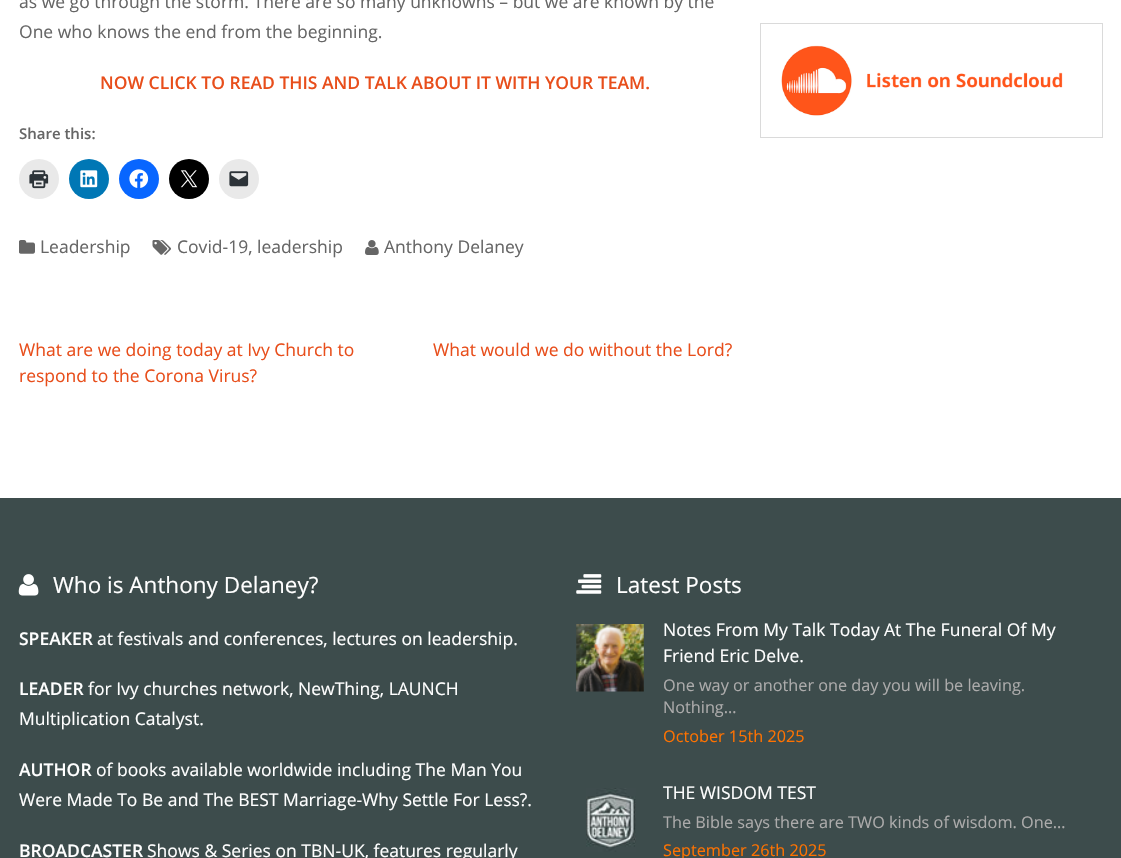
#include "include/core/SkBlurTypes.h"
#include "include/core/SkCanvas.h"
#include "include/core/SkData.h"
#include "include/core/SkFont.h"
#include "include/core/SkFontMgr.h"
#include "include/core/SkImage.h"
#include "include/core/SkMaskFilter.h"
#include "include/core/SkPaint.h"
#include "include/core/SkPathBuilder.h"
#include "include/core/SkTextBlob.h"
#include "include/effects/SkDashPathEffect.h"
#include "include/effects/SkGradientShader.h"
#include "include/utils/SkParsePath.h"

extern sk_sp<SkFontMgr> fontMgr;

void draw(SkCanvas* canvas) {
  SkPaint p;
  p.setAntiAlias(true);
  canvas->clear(SK_ColorWHITE);
  p.setColor(SkColorSetRGB(233, 233, 233));
  canvas->drawCircle(39, 179, 20, p);
  canvas->drawImageRect(SkImages::DeferredFromEncodedData(SkData::MakeFromFileName("images/1.png")), SkRect::MakeLTRB(29, 170, 49, 189), SkSamplingOptions());
  p.setColor(SkColorSetRGB(0, 119, 181));
  canvas->drawCircle(89, 179, 20, p);
  canvas->drawImageRect(SkImages::DeferredFromEncodedData(SkData::MakeFromFileName("images/2.png")), SkRect::MakeLTRB(80, 170, 98, 188), SkSamplingOptions());
  p.setColor(SkColorSetRGB(8, 102, 255));
  canvas->drawCircle(139, 179, 20, p);
  canvas->drawImageRect(SkImages::DeferredFromEncodedData(SkData::MakeFromFileName("images/3.png")), SkRect::MakeLTRB(129, 169, 149, 188), SkSamplingOptions());
  p.setColor(SK_ColorBLACK);
  canvas->drawCircle(189, 179, 20, p);
  canvas->drawImageRect(SkImages::DeferredFromEncodedData(SkData::MakeFromFileName("images/4.png")), SkRect::MakeLTRB(180, 170, 198, 188), SkSamplingOptions());
  p.setColor(SkColorSetRGB(233, 233, 233));
  canvas->drawCircle(239, 179, 20, p);
  canvas->drawImageRect(SkImages::DeferredFromEncodedData(SkData::MakeFromFileName("images/5.png")), SkRect::MakeLTRB(229, 171, 249, 187), SkSamplingOptions());
  canvas->drawImageRect(SkImages::DeferredFromEncodedData(SkData::MakeFromFileName("images/6.png")), SkRect::MakeLTRB(19, 240, 35, 254), SkSamplingOptions());
  canvas->drawImageRect(SkImages::DeferredFromEncodedData(SkData::MakeFromFileName("images/7.png")), SkRect::MakeLTRB(152, 240, 171, 255), SkSamplingOptions());
  canvas->drawImageRect(SkImages::DeferredFromEncodedData(SkData::MakeFromFileName("images/8.png")), SkRect::MakeLTRB(365, 240, 379, 255), SkSamplingOptions());
  p.setStyle(SkPaint::kStroke_Style);
  p.setStrokeWidth(1);
  p.setColor(SkColorSetRGB(218, 218, 218));
  canvas->drawRect(SkRect::MakeLTRB(760.5f, 23.5f, 1102.5f, 137.5f), p);
  canvas->drawImageRect(SkImages::DeferredFromEncodedData(SkData::MakeFromFileName("images/9.png")), SkRect::MakeLTRB(781, 45, 1063, 116), SkSamplingOptions());
  p.setStyle(SkPaint::kFill_Style);
  p.setColor(SkColorSetRGB(61, 76, 76));
  canvas->drawRect(SkRect::MakeLTRB(0, 498, 1121, 858), p);
  canvas->drawImageRect(SkImages::DeferredFromEncodedData(SkData::MakeFromFileName("images/10.png")), SkRect::MakeLTRB(18, 574, 39, 596), SkSamplingOptions());
  canvas->drawImageRect(SkImages::DeferredFromEncodedData(SkData::MakeFromFileName("images/11.png")), SkRect::MakeLTRB(576, 574, 602, 594), SkSamplingOptions());
  canvas->drawImageRect(SkImages::DeferredFromEncodedData(SkData::MakeFromFileName("images/12.png")), SkRect::MakeLTRB(576, 624, 644, 692), SkSamplingOptions());
  canvas->drawImageRect(SkImages::DeferredFromEncodedData(SkData::MakeFromFileName("images/13.png")), SkRect::MakeLTRB(586, 788, 636, 852), SkSamplingOptions());
  SkFont font1(fontMgr->matchFamilyStyle("Open Sans", SkFontStyle::Normal()), 17.5f);
  font1.setSubpixel(true);
  p.setColor(SkColorSetRGB(102, 102, 102));
  canvas->drawString("as we go through the storm. There are so many unknowns – but we are known by the", 19, 8, font1, p);
  canvas->drawString("One who knows the end from the beginning.", 19, 38, font1, p);
  SkFont font2(fontMgr->matchFamilyStyle("Open Sans", SkFontStyle(600, SkFontStyle::kNormal_Width, SkFontStyle::kUpright_Slant)), 17.5f);
  font2.setSubpixel(true);
  p.setColor(SkColorSetRGB(232, 78, 27));
  canvas->drawString("NOW CLICK TO READ THIS AND TALK ABOUT IT WITH YOUR TEAM.", 100, 89, font2, p);
  SkFont font3(fontMgr->matchFamilyStyle("Open Sans", SkFontStyle(600, SkFontStyle::kNormal_Width, SkFontStyle::kUpright_Slant)), 15);
  font3.setSubpixel(true);
  p.setColor(SkColorSetRGB(102, 102, 102));
  canvas->drawString("Share this:", 19, 139, font3, p);
  canvas->drawString("Leadership", 40, 253, font1, p);
  canvas->drawString("Covid-19, leadership", 177, 253, font1, p);
  canvas->drawString("Anthony Delaney", 384, 253, font1, p);
  p.setColor(SkColorSetRGB(232, 78, 27));
  canvas->drawString("What are we doing today at Ivy Church to", 19, 356, font1, p);
  canvas->drawString("respond to the Corona Virus?", 19, 382, font1, p);
  canvas->drawString("What would we do without the Lord?", 433, 356, font1, p);
  SkFont font4(fontMgr->matchFamilyStyle("Open Sans", SkFontStyle::Normal()), 22.5f);
  font4.setSubpixel(true);
  p.setColor(SK_ColorWHITE);
  canvas->drawString("Who is Anthony Delaney?", 53, 593, font4, p);
  canvas->drawString("SPEAKER", 19, 645, font2, p);
  canvas->drawString("at festivals and conferences, lectures on leadership.", 97, 645, font1, p);
  canvas->drawString("LEADER", 19, 695, font2, p);
  canvas->drawString("for Ivy churches network, NewThing, LAUNCH", 88, 695, font1, p);
  canvas->drawString("Multiplication Catalyst.", 19, 725, font1, p);
  canvas->drawString("AUTHOR", 19, 776, font2, p);
  canvas->drawString("of books available worldwide including The Man You", 96, 776, font1, p);
  canvas->drawString("Were Made To Be and The BEST Marriage-Why Settle For Less?.", 19, 806, font1, p);
  canvas->drawString("BROADCASTER", 19, 857, font2, p);
  canvas->drawString("Shows & Series on TBN-UK, features regularly", 147, 857, font1, p);
  canvas->drawString("Latest Posts", 616, 593, font4, p);
  canvas->drawString("Notes From My Talk Today At The Funeral Of My", 663, 636, font1, p);
  canvas->drawString("Friend Eric Delve.", 663, 662, font1, p);
  SkFont font5(fontMgr->matchFamilyStyle("Open Sans", SkFontStyle::Normal()), 16.25f);
  font5.setSubpixel(true);
  p.setColor(SkColorSetRGB(172, 171, 171));
  canvas->drawString("One way or another one day you will be leaving.", 663, 691, font5, p);
  canvas->drawString("Nothing…", 663, 713, font5, p);
  p.setColor(SkColorSetRGB(255, 114, 0));
  canvas->drawString("October 15th 2025", 663, 742, font5, p);
  p.setColor(SK_ColorWHITE);
  canvas->drawString("THE WISDOM TEST", 663, 799, font1, p);
  p.setColor(SkColorSetRGB(172, 171, 171));
  canvas->drawString("The Bible says there are TWO kinds of wisdom. One…", 663, 828, font5, p);
  p.setColor(SkColorSetRGB(255, 114, 0));
  canvas->drawString("September 26th 2025", 663, 856, font5, p);
}
